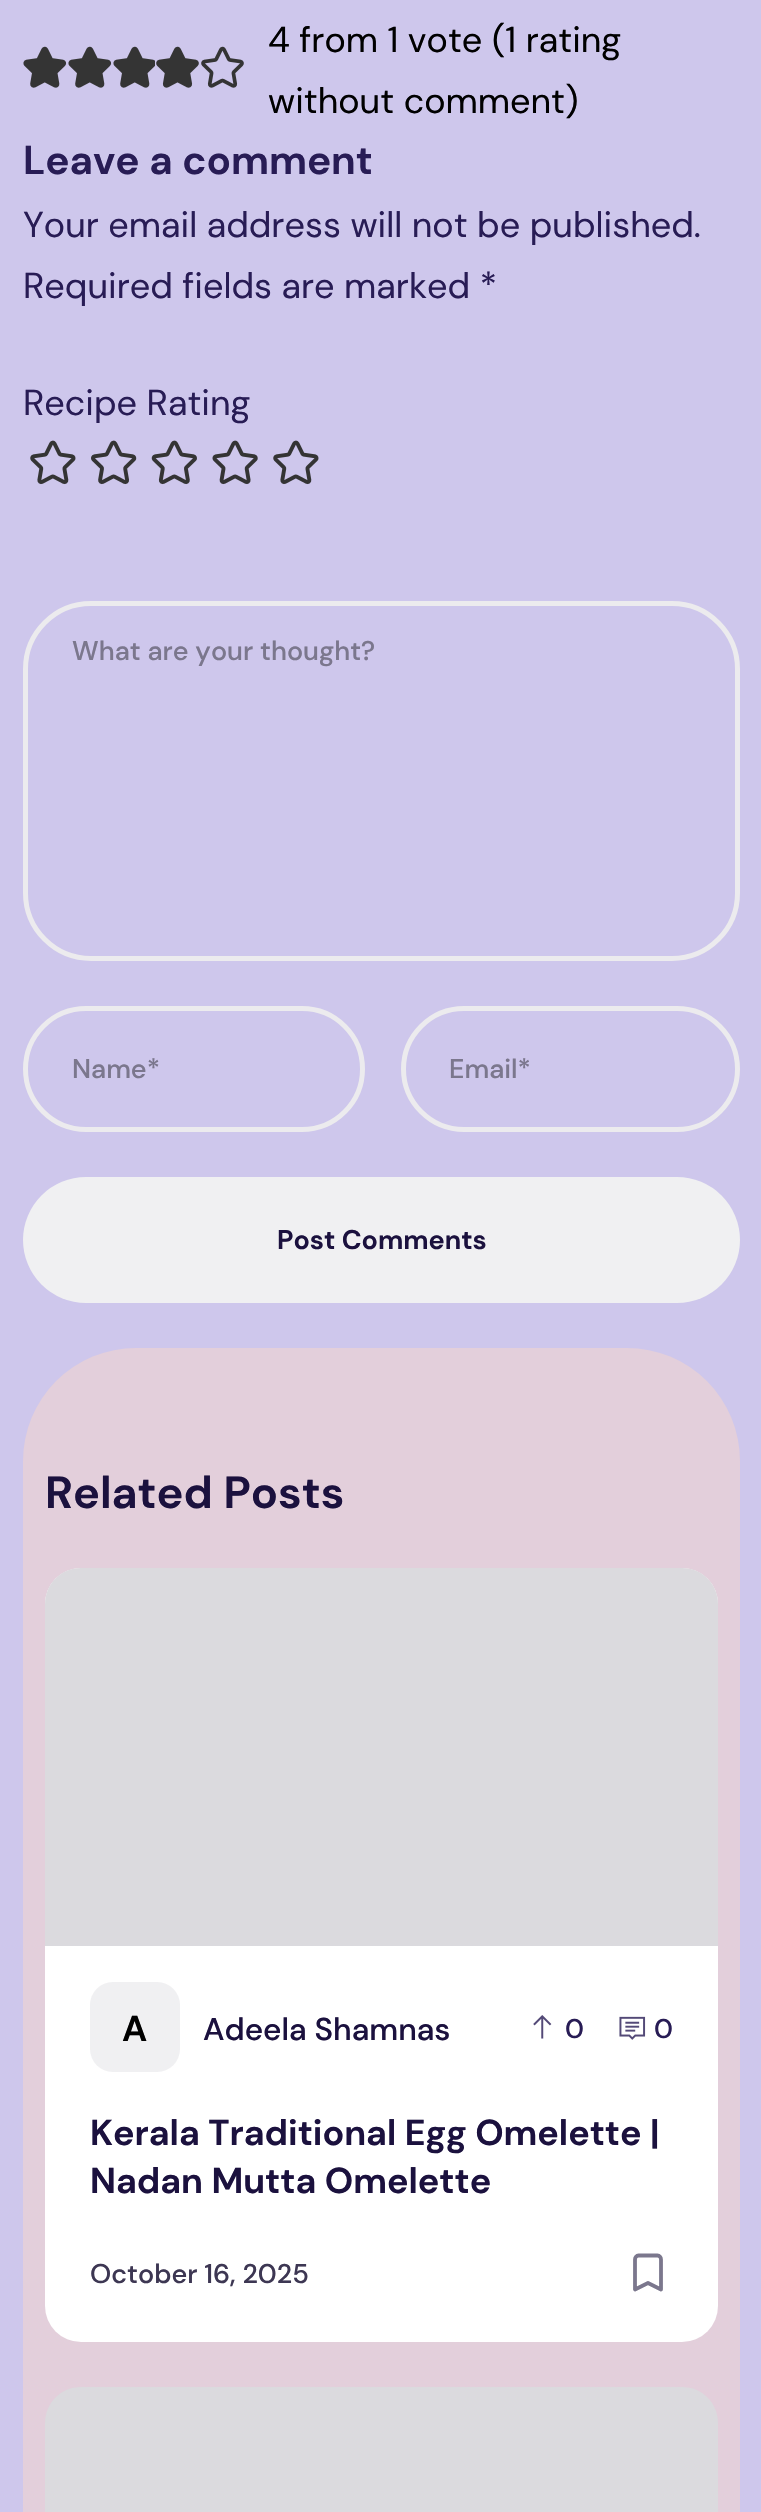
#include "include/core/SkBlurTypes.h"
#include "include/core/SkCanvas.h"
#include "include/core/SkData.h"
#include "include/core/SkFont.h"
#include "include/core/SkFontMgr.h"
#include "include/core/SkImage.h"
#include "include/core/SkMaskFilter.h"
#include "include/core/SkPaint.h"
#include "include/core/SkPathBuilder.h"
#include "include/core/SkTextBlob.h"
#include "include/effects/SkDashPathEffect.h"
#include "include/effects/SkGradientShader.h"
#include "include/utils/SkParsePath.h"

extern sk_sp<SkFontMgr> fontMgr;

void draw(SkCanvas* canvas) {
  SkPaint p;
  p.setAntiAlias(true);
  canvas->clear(SkColorSetRGB(206, 199, 236));
  canvas->drawImageRect(SkImages::DeferredFromEncodedData(SkData::MakeFromFileName("images/1.png")), SkRect::MakeLTRB(23, 46, 67, 88), SkSamplingOptions());
  canvas->drawImageRect(SkImages::DeferredFromEncodedData(SkData::MakeFromFileName("images/1.png")), SkRect::MakeLTRB(68, 46, 112, 88), SkSamplingOptions());
  canvas->drawImageRect(SkImages::DeferredFromEncodedData(SkData::MakeFromFileName("images/2.png")), SkRect::MakeLTRB(113, 46, 155, 88), SkSamplingOptions());
  canvas->drawImageRect(SkImages::DeferredFromEncodedData(SkData::MakeFromFileName("images/3.png")), SkRect::MakeLTRB(156, 46, 199, 88), SkSamplingOptions());
  canvas->drawImageRect(SkImages::DeferredFromEncodedData(SkData::MakeFromFileName("images/4.png")), SkRect::MakeLTRB(201, 46, 244, 88), SkSamplingOptions());
  canvas->drawImageRect(SkImages::DeferredFromEncodedData(SkData::MakeFromFileName("images/5.png")), SkRect::MakeLTRB(30, 440, 319, 485), SkSamplingOptions());
  p.setStyle(SkPaint::kStroke_Style);
  p.setStrokeWidth(5);
  p.setColor(SkColorSetRGB(236, 235, 238));
  canvas->drawRoundRect(SkRect::MakeLTRB(25.5f, 603.5f, 737.5f, 958.5f), 65.5f, 65.5f, p);
  canvas->drawRoundRect(SkRect::MakeLTRB(25.5f, 1008.5f, 362.5f, 1129.5f), 60.5f, 60.5f, p);
  canvas->drawRoundRect(SkRect::MakeLTRB(403.5f, 1008.5f, 737.5f, 1129.5f), 60.5f, 60.5f, p);
  p.setStyle(SkPaint::kFill_Style);
  p.setColor(SkColorSetRGB(240, 240, 242));
  canvas->drawRoundRect(SkRect::MakeLTRB(23, 1177, 740, 1303), 63, 63, p);
  p.setColor(SkColorSetRGB(227, 207, 219));
  canvas->drawRoundRect(SkRect::MakeLTRB(23, 1348, 740, 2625), 113, 113, p);
  p.setColor(SK_ColorWHITE);
  canvas->drawRoundRect(SkRect::MakeLTRB(45, 1568, 718, 2342), 36, 36, p);
  p.setColor(SkColorSetRGB(219, 218, 222));
  canvas->drawPath(SkPathBuilder().moveTo(81, 1568).lineTo(682, 1568).cubicTo(702, 1568, 718, 1584, 718, 1604).lineTo(718, 1946).lineTo(45, 1946).lineTo(45, 1604).cubicTo(45, 1584, 61, 1568, 81, 1568).close().detach(), p);
  p.setColor(SkColorSetRGB(240, 240, 242));
  canvas->drawRoundRect(SkRect::MakeLTRB(90, 1982, 180, 2072), 23, 23, p);
  canvas->drawImageRect(SkImages::DeferredFromEncodedData(SkData::MakeFromFileName("images/6.png")), SkRect::MakeLTRB(533, 2015, 552, 2039), SkSamplingOptions());
  canvas->drawImageRect(SkImages::DeferredFromEncodedData(SkData::MakeFromFileName("images/7.png")), SkRect::MakeLTRB(619, 2016, 646, 2040), SkSamplingOptions());
  p.setStyle(SkPaint::kStroke_Style);
  p.setStrokeWidth(3.8f);
  p.setStrokeCap(SkPaint::kRound_Cap);
  p.setStrokeJoin(SkPaint::kRound_Join);
  p.setColor(SkColorSetRGB(123, 119, 141));
  canvas->drawPath(SkPathBuilder().moveTo(635, 2259.5f).cubicTo(635, 2257.5f, 636.5f, 2255.5f, 638.5f, 2255.5f).lineTo(657.5f, 2255.5f).cubicTo(659.5f, 2255.5f, 661, 2257.5f, 661, 2259.5f).lineTo(661, 2289.5f).lineTo(648, 2283).lineTo(635, 2289.5f).close().detach(), p);
  p.setStyle(SkPaint::kFill_Style);
  p.setColor(SkColorSetRGB(219, 218, 222));
  canvas->drawPath(SkPathBuilder().moveTo(81, 2387).lineTo(682, 2387).cubicTo(702, 2387, 718, 2403, 718, 2423).lineTo(718, 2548).lineTo(45, 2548).lineTo(45, 2423).cubicTo(45, 2403, 61, 2387, 81, 2387).close().detach(), p);
  SkFont font1(fontMgr->matchFamilyStyle("DM Sans", SkFontStyle::Normal()), 36);
  font1.setSubpixel(true);
  p.setColor(SK_ColorBLACK);
  canvas->drawString("4 from 1 vote (1 rating", 268, 52, font1, p);
  canvas->drawString("without comment)", 268, 113, font1, p);
  SkFont font2(fontMgr->matchFamilyStyle("DM Sans", SkFontStyle::Bold()), 40.5f);
  font2.setSubpixel(true);
  p.setColor(SkColorSetRGB(40, 28, 85));
  canvas->drawString("Leave a comment", 23, 174, font2, p);
  canvas->drawString("Your email address will not be published.", 23, 237, font1, p);
  canvas->drawString("Required fields are marked *", 23, 298, font1, p);
  canvas->drawString("Recipe Rating", 23, 415, font1, p);
  SkFont font3(fontMgr->matchFamilyStyle("DM Sans", SkFontStyle(500, SkFontStyle::kNormal_Width, SkFontStyle::kUpright_Slant)), 27);
  font3.setSubpixel(true);
  p.setColor(SkColorSetRGB(123, 119, 141));
  canvas->drawString("What are your thought?", 72, 660, font3, p);
  canvas->drawString("Name*", 72, 1078, font3, p);
  canvas->drawString("Email*", 449, 1078, font3, p);
  SkFont font4(fontMgr->matchFamilyStyle("DM Sans", SkFontStyle::Bold()), 27);
  font4.setSubpixel(true);
  p.setColor(SkColorSetRGB(27, 17, 62));
  canvas->drawString("Post Comments", 277, 1249, font4, p);
  SkFont font5(fontMgr->matchFamilyStyle("DM Sans", SkFontStyle::Bold()), 45);
  font5.setSubpixel(true);
  canvas->drawString("Related Posts", 45, 1508, font5, p);
  SkFont font6(fontMgr->matchFamilyStyle("DM Sans", SkFontStyle::Bold()), 36);
  font6.setSubpixel(true);
  p.setColor(SK_ColorBLACK);
  canvas->drawString("A", 122, 2041, font6, p);
  SkFont font7(fontMgr->matchFamilyStyle("DM Sans", SkFontStyle(500, SkFontStyle::kNormal_Width, SkFontStyle::kUpright_Slant)), 31.5f);
  font7.setSubpixel(true);
  p.setColor(SkColorSetRGB(27, 17, 62));
  canvas->drawString("Adeela Shamnas", 203, 2040, font7, p);
  p.setColor(SkColorSetRGB(40, 28, 85));
  canvas->drawString("0", 565, 2038, font3, p);
  canvas->drawString("0", 654, 2038, font3, p);
  p.setColor(SkColorSetRGB(27, 17, 62));
  canvas->drawString("Kerala Traditional Egg Omelette |", 90, 2145, font6, p);
  canvas->drawString("Nadan Mutta Omelette", 90, 2193, font6, p);
  p.setColor(SkColorSetRGB(61, 55, 83));
  canvas->drawString("October 16, 2025", 90, 2283, font3, p);
}
